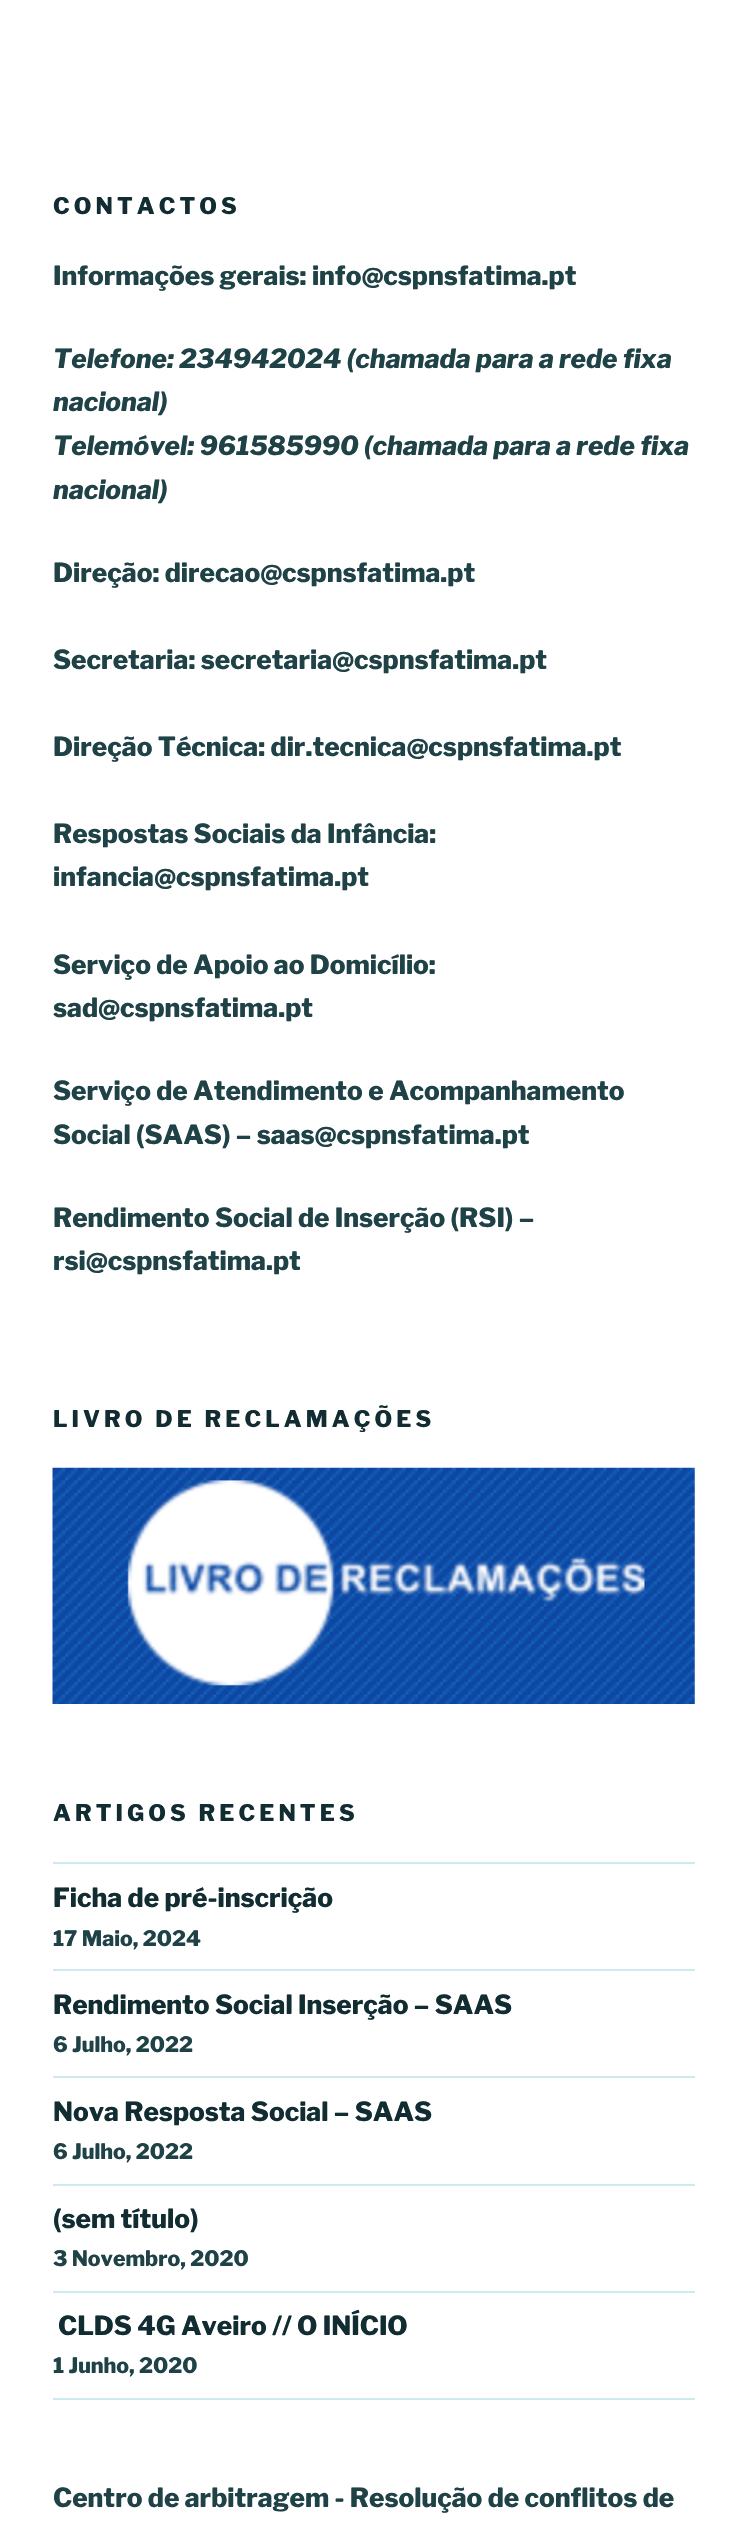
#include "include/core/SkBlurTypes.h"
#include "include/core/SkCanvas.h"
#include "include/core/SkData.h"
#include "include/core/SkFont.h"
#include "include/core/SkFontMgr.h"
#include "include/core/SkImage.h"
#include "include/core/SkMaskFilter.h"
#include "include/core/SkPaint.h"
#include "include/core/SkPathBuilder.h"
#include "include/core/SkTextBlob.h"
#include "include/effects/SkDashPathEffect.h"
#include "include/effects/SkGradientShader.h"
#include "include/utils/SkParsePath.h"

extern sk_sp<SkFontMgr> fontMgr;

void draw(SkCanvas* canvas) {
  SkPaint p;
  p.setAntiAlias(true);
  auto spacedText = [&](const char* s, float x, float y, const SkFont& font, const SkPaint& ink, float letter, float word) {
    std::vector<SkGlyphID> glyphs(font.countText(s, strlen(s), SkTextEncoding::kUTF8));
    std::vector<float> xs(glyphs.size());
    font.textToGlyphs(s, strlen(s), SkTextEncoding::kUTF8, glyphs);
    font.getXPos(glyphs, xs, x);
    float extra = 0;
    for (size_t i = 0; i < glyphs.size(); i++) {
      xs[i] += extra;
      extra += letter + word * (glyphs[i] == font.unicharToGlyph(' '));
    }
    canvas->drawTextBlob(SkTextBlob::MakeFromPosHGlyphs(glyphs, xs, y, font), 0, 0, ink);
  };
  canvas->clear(SK_ColorWHITE);
  canvas->drawImageRect(SkImages::DeferredFromEncodedData(SkData::MakeFromFileName("images/1.png")), SkRect::MakeLTRB(52, 1467, 695, 1704), SkSamplingOptions());
  p.setColor(SkColorSetRGB(205, 234, 238));
  canvas->drawRect(SkRect::MakeLTRB(53, 1862, 695, 1864), p);
  canvas->drawRect(SkRect::MakeLTRB(53, 1969, 695, 1971), p);
  canvas->drawRect(SkRect::MakeLTRB(53, 2076, 695, 2078), p);
  canvas->drawRect(SkRect::MakeLTRB(53, 2184, 695, 2186), p);
  canvas->drawRect(SkRect::MakeLTRB(53, 2291, 695, 2293), p);
  canvas->drawRect(SkRect::MakeLTRB(53, 2398, 695, 2400), p);
  SkFont font1(fontMgr->matchFamilyStyle("Libre Franklin", SkFontStyle(100, SkFontStyle::kNormal_Width, SkFontStyle::kUpright_Slant)), 22.75f);
  font1.setSubpixel(true);
  p.setColor(SkColorSetRGB(17, 45, 50));
  spacedText("CONTACTOS", 53, 214, font1, p, 4.1f, 0);
  SkFont font2(fontMgr->matchFamilyStyle("Libre Franklin", SkFontStyle(100, SkFontStyle::kNormal_Width, SkFontStyle::kUpright_Slant)), 26.25f);
  font2.setSubpixel(true);
  p.setColor(SkColorSetRGB(31, 66, 71));
  canvas->drawString("Informações gerais: info@cspnsfatima.pt", 53, 285, font2, p);
  SkFont font3(fontMgr->matchFamilyStyle("Libre Franklin", SkFontStyle(100, SkFontStyle::kNormal_Width, SkFontStyle::kItalic_Slant)), 26.25f);
  font3.setSubpixel(true);
  canvas->drawString("Telefone: 234942024 (chamada para a rede fixa", 53, 368, font3, p);
  canvas->drawString("nacional)", 53, 411, font3, p);
  canvas->drawString("Telemóvel: 961585990 (chamada para a rede fixa", 53, 455, font3, p);
  canvas->drawString("nacional)", 53, 499, font3, p);
  canvas->drawString("Direção: direcao@cspnsfatima.pt", 53, 582, font2, p);
  canvas->drawString("Secretaria: secretaria@cspnsfatima.pt", 53, 669, font2, p);
  canvas->drawString("Direção Técnica: dir.tecnica@cspnsfatima.pt", 53, 756, font2, p);
  canvas->drawString("Respostas Sociais da Infância:", 53, 843, font2, p);
  canvas->drawString("infancia@cspnsfatima.pt", 53, 886, font2, p);
  canvas->drawString("Serviço de Apoio ao Domicílio:", 53, 974, font2, p);
  canvas->drawString("sad@cspnsfatima.pt", 53, 1017, font2, p);
  canvas->drawString("Serviço de Atendimento e Acompanhamento", 53, 1100, font2, p);
  canvas->drawString("Social (SAAS) – saas@cspnsfatima.pt", 53, 1144, font2, p);
  canvas->drawString("Rendimento Social de Inserção (RSI) –", 53, 1227, font2, p);
  canvas->drawString("rsi@cspnsfatima.pt", 53, 1270, font2, p);
  p.setColor(SkColorSetRGB(17, 45, 50));
  spacedText("LIVRO DE RECLAMAÇÕES", 53, 1427, font1, p, 4.1f, 0);
  spacedText("ARTIGOS RECENTES", 53, 1821, font1, p, 4.1f, 0);
  canvas->drawString("Ficha de pré-inscrição", 53, 1907, font2, p);
  SkFont font4(fontMgr->matchFamilyStyle("Libre Franklin", SkFontStyle(100, SkFontStyle::kNormal_Width, SkFontStyle::kUpright_Slant)), 21.25f);
  font4.setSubpixel(true);
  p.setColor(SkColorSetRGB(31, 66, 71));
  canvas->drawString("17 Maio, 2024", 53, 1946, font4, p);
  p.setColor(SkColorSetRGB(17, 45, 50));
  canvas->drawString("Rendimento Social Inserção – SAAS", 53, 2014, font2, p);
  p.setColor(SkColorSetRGB(31, 66, 71));
  canvas->drawString("6 Julho, 2022", 53, 2052, font4, p);
  p.setColor(SkColorSetRGB(17, 45, 50));
  canvas->drawString("Nova Resposta Social – SAAS", 53, 2121, font2, p);
  p.setColor(SkColorSetRGB(31, 66, 71));
  canvas->drawString("6 Julho, 2022", 53, 2159, font4, p);
  p.setColor(SkColorSetRGB(17, 45, 50));
  canvas->drawString("(sem título)", 53, 2228, font2, p);
  p.setColor(SkColorSetRGB(31, 66, 71));
  canvas->drawString("3 Novembro, 2020", 53, 2266, font4, p);
  p.setColor(SkColorSetRGB(17, 45, 50));
  canvas->drawString("CLDS 4G Aveiro // O INÍCIO", 58, 2335, font2, p);
  p.setColor(SkColorSetRGB(31, 66, 71));
  canvas->drawString("1 Junho, 2020", 53, 2373, font4, p);
  canvas->drawString("Centro de arbitragem - Resolução de conflitos de", 53, 2507, font2, p);
}
